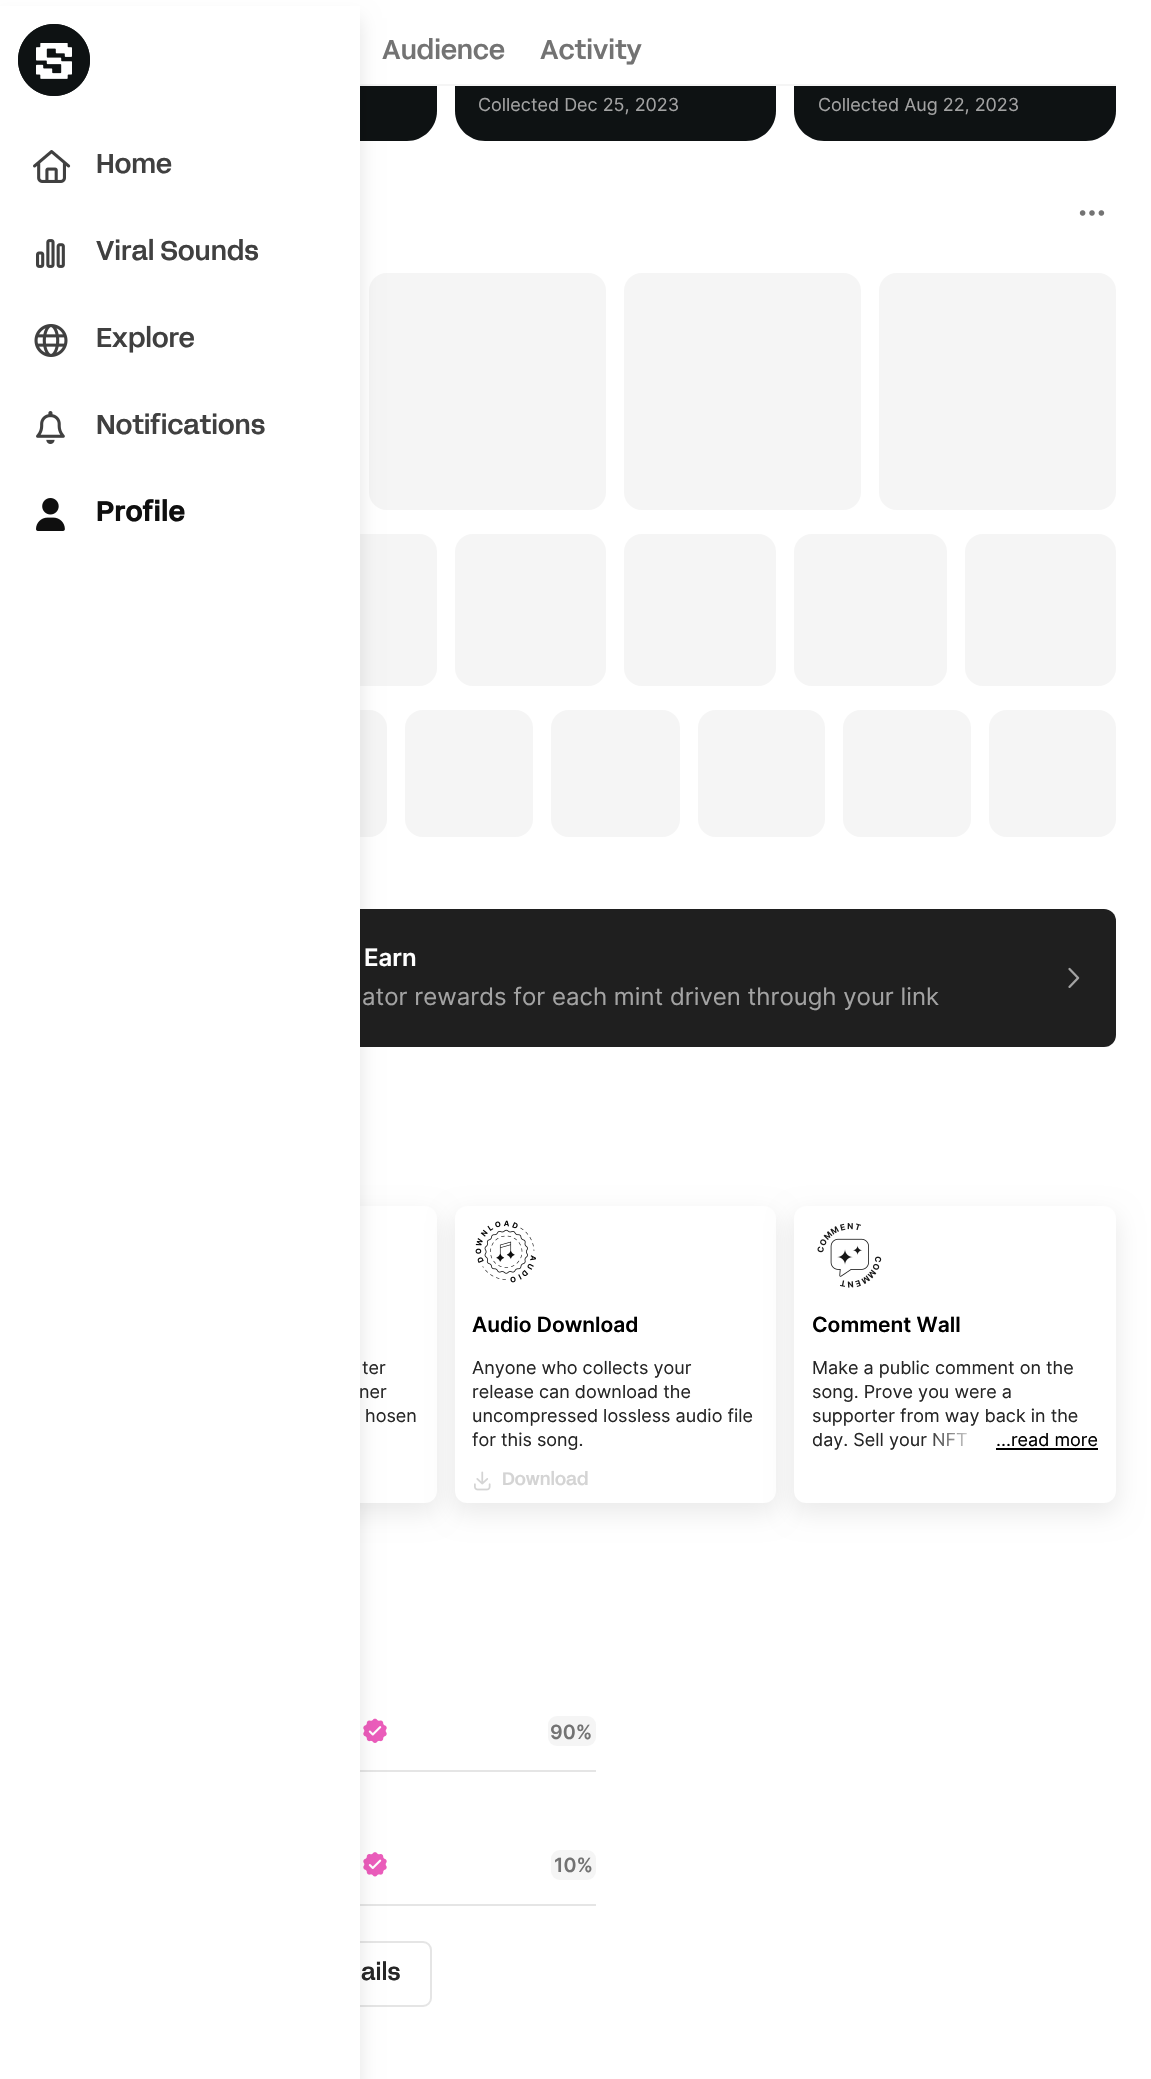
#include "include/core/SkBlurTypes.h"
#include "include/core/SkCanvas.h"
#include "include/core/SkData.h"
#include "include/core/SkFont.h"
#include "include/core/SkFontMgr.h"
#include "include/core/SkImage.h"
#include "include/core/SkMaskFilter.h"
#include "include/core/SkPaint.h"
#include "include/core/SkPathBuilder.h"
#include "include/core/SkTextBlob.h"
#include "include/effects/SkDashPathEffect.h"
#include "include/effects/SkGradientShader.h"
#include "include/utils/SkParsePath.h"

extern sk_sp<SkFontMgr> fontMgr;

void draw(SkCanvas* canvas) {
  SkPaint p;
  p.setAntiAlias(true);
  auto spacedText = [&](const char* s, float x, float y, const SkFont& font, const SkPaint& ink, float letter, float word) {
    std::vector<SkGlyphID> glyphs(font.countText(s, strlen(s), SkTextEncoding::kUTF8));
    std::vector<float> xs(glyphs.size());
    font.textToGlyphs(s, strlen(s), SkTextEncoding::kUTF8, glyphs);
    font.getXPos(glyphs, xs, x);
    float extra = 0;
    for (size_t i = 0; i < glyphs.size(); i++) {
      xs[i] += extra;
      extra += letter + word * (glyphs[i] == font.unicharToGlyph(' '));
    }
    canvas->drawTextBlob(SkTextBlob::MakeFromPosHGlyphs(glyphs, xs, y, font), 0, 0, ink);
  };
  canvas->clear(SK_ColorWHITE);
  p.setColor(SkColorSetRGB(14, 18, 19));
  canvas->drawPath(SkPathBuilder().moveTo(114, 59).lineTo(437, 59).lineTo(437, 111).cubicTo(437, 127.5f, 423.5f, 141, 407, 141).lineTo(144, 141).cubicTo(127.5f, 141, 114, 127.5f, 114, 111).close().detach(), p);
  canvas->drawPath(SkPathBuilder().moveTo(455, 59).lineTo(776, 59).lineTo(776, 111).cubicTo(776, 127.5f, 762.5f, 141, 746, 141).lineTo(485, 141).cubicTo(468.5f, 141, 455, 127.5f, 455, 111).close().detach(), p);
  canvas->drawPath(SkPathBuilder().moveTo(794, 59).lineTo(1116, 59).lineTo(1116, 111).cubicTo(1116, 127.5f, 1102.5f, 141, 1086, 141).lineTo(824, 141).cubicTo(807.5f, 141, 794, 127.5f, 794, 111).close().detach(), p);
  p.setColor(SK_ColorWHITE);
  canvas->drawRect(SkRect::MakeLTRB(360, 59, 1116, 86), p);
  p.setColor(SkColorSetRGB(245, 245, 245));
  canvas->drawRect(SkRect::MakeLTRB(360, 84, 1116, 86), p);
  canvas->drawRoundRect(SkRect::MakeLTRB(369, 273, 606, 510), 18, 18, p);
  canvas->drawRoundRect(SkRect::MakeLTRB(284, 534, 437, 686), 18, 18, p);
  canvas->drawRoundRect(SkRect::MakeLTRB(260, 710, 387, 837), 18, 18, p);
  p.setColor(SkColorSetRGB(31, 31, 31));
  canvas->drawRoundRect(SkRect::MakeLTRB(114, 909, 1116, 1047), 12, 12, p);
  p.setColor(SkColorSetARGB(20, 0, 0, 0));
  p.setMaskFilter(SkMaskFilter::MakeBlur(kNormal_SkBlurStyle, 12));
  canvas->drawRoundRect(SkRect::MakeLTRB(113, 1214, 438, 1514), 14, 14, p);
  p.setMaskFilter(nullptr);
  p.setColor(SK_ColorWHITE);
  canvas->drawRoundRect(SkRect::MakeLTRB(114, 1206, 437, 1503), 12, 12, p);
  p.setColor(SkColorSetRGB(229, 229, 229));
  canvas->drawRect(SkRect::MakeLTRB(360, 1770, 596, 1772), p);
  canvas->drawImageRect(SkImages::DeferredFromEncodedData(SkData::MakeFromFileName("images/12.png")), SkRect::MakeLTRB(363, 1718, 387, 1743), SkSamplingOptions());
  canvas->drawRect(SkRect::MakeLTRB(360, 1904, 596, 1906), p);
  canvas->drawImageRect(SkImages::DeferredFromEncodedData(SkData::MakeFromFileName("images/13.png")), SkRect::MakeLTRB(363, 1852, 387, 1877), SkSamplingOptions());
  p.setStyle(SkPaint::kStroke_Style);
  p.setStrokeWidth(2);
  canvas->drawRoundRect(SkRect::MakeLTRB(115, 1942, 431, 2006), 8, 8, p);
  p.setStyle(SkPaint::kFill_Style);
  p.setColor(SkColorSetARGB(26, 0, 0, 0));
  p.setMaskFilter(SkMaskFilter::MakeBlur(kNormal_SkBlurStyle, 9));
  canvas->drawRect(SkRect::MakeLTRB(0, 18, 360, 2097), p);
  p.setMaskFilter(nullptr);
  p.setColor(SK_ColorWHITE);
  canvas->drawRect(SkRect::MakeLTRB(0, 6, 360, 2079), p);
  canvas->drawImageRect(SkImages::DeferredFromEncodedData(SkData::MakeFromFileName("images/1.png")), SkRect::MakeLTRB(18, 24, 90, 96), SkSamplingOptions());
  canvas->drawImageRect(SkImages::DeferredFromEncodedData(SkData::MakeFromFileName("images/2.png")), SkRect::MakeLTRB(33, 150, 71, 183), SkSamplingOptions());
  canvas->drawImageRect(SkImages::DeferredFromEncodedData(SkData::MakeFromFileName("images/3.png")), SkRect::MakeLTRB(36, 239, 65, 268), SkSamplingOptions());
  canvas->drawImageRect(SkImages::DeferredFromEncodedData(SkData::MakeFromFileName("images/4.png")), SkRect::MakeLTRB(34, 324, 68, 357), SkSamplingOptions());
  canvas->drawImageRect(SkImages::DeferredFromEncodedData(SkData::MakeFromFileName("images/5.png")), SkRect::MakeLTRB(36, 411, 65, 444), SkSamplingOptions());
  canvas->drawImageRect(SkImages::DeferredFromEncodedData(SkData::MakeFromFileName("images/6.png")), SkRect::MakeLTRB(36, 498, 65, 531), SkSamplingOptions());
  canvas->drawImageRect(SkImages::DeferredFromEncodedData(SkData::MakeFromFileName("images/7.png")), SkRect::MakeLTRB(1079, 210, 1105, 216), SkSamplingOptions());
  p.setColor(SkColorSetRGB(245, 245, 245));
  canvas->drawRoundRect(SkRect::MakeLTRB(624, 273, 861, 510), 18, 18, p);
  canvas->drawRoundRect(SkRect::MakeLTRB(879, 273, 1116, 510), 18, 18, p);
  canvas->drawRoundRect(SkRect::MakeLTRB(455, 534, 606, 686), 18, 18, p);
  canvas->drawRoundRect(SkRect::MakeLTRB(624, 534, 776, 686), 18, 18, p);
  canvas->drawRoundRect(SkRect::MakeLTRB(794, 534, 947, 686), 18, 18, p);
  canvas->drawRoundRect(SkRect::MakeLTRB(965, 534, 1116, 686), 18, 18, p);
  canvas->drawRoundRect(SkRect::MakeLTRB(405, 710, 533, 837), 18, 18, p);
  canvas->drawRoundRect(SkRect::MakeLTRB(551, 710, 680, 837), 18, 18, p);
  canvas->drawRoundRect(SkRect::MakeLTRB(698, 710, 825, 837), 18, 18, p);
  canvas->drawRoundRect(SkRect::MakeLTRB(843, 710, 971, 837), 18, 18, p);
  canvas->drawRoundRect(SkRect::MakeLTRB(989, 710, 1116, 837), 18, 18, p);
  canvas->drawImageRect(SkImages::DeferredFromEncodedData(SkData::MakeFromFileName("images/8.png")), SkRect::MakeLTRB(1068, 967, 1080, 988), SkSamplingOptions());
  p.setColor(SkColorSetARGB(20, 0, 0, 0));
  p.setMaskFilter(SkMaskFilter::MakeBlur(kNormal_SkBlurStyle, 12));
  canvas->drawRoundRect(SkRect::MakeLTRB(453, 1214, 777, 1514), 14, 14, p);
  p.setMaskFilter(nullptr);
  p.setColor(SK_ColorWHITE);
  canvas->drawRoundRect(SkRect::MakeLTRB(455, 1206, 776, 1503), 12, 12, p);
  canvas->drawImageRect(SkImages::DeferredFromEncodedData(SkData::MakeFromFileName("images/9.png")), SkRect::MakeLTRB(475, 1220, 536, 1283), SkSamplingOptions());
  canvas->drawImageRect(SkImages::DeferredFromEncodedData(SkData::MakeFromFileName("images/10.png")), SkRect::MakeLTRB(474, 1471, 491, 1491), SkSamplingOptions());
  p.setColor(SkColorSetARGB(20, 0, 0, 0));
  p.setMaskFilter(SkMaskFilter::MakeBlur(kNormal_SkBlurStyle, 12));
  canvas->drawRoundRect(SkRect::MakeLTRB(792, 1214, 1118, 1514), 14, 14, p);
  p.setMaskFilter(nullptr);
  p.setColor(SK_ColorWHITE);
  canvas->drawRoundRect(SkRect::MakeLTRB(794, 1206, 1116, 1503), 12, 12, p);
  canvas->drawImageRect(SkImages::DeferredFromEncodedData(SkData::MakeFromFileName("images/11.png")), SkRect::MakeLTRB(817, 1223, 882, 1288), SkSamplingOptions());
  p.setColor(SK_ColorBLACK);
  canvas->drawRect(SkRect::MakeLTRB(996, 1448, 1098, 1450), p);
  p.setColor(SkColorSetRGB(245, 245, 245));
  canvas->drawRoundRect(SkRect::MakeLTRB(548, 1716, 596, 1746), 9, 9, p);
  canvas->drawRoundRect(SkRect::MakeLTRB(551, 1850, 596, 1880), 9, 9, p);
  SkFont font1(fontMgr->matchFamilyStyle("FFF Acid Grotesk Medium", SkFontStyle(500, SkFontStyle::kNormal_Width, SkFontStyle::kUpright_Slant)), 27);
  font1.setSubpixel(true);
  p.setColor(SkColorSetRGB(64, 64, 64));
  canvas->drawString("Home", 96, 173, font1, p);
  canvas->drawString("Viral Sounds", 96, 260, font1, p);
  canvas->drawString("Explore", 96, 347, font1, p);
  canvas->drawString("Notifications", 96, 434, font1, p);
  SkFont font2(fontMgr->matchFamilyStyle("FFF Acid Grotesk Medium", SkFontStyle::Bold()), 27);
  font2.setSubpixel(true);
  p.setColor(SkColorSetRGB(15, 15, 15));
  spacedText("Profile", 96, 521, font2, p, 0.75f, 0);
  p.setColor(SkColorSetRGB(115, 115, 115));
  canvas->drawString("Audience", 382, 59, font1, p);
  canvas->drawString("Activity", 540, 59, font1, p);
  SkFont font3(fontMgr->matchFamilyStyle("Inter", SkFontStyle::Normal()), 18);
  font3.setSubpixel(true);
  p.setColor(SkColorSetRGB(163, 163, 163));
  canvas->drawString("Collected Dec 25, 2023", 478, 111, font3, p);
  canvas->drawString("Collected Aug 22, 2023", 818, 111, font3, p);
  SkFont font4(fontMgr->matchFamilyStyle("Inter", SkFontStyle(600, SkFontStyle::kNormal_Width, SkFontStyle::kUpright_Slant)), 24);
  font4.setSubpixel(true);
  p.setColor(SK_ColorWHITE);
  canvas->drawString("Earn", 364, 966, font4, p);
  SkFont font5(fontMgr->matchFamilyStyle("Inter", SkFontStyle::Normal()), 24);
  font5.setSubpixel(true);
  p.setColor(SkColorSetRGB(163, 163, 163));
  canvas->drawString("ator rewards for each mint driven through your link", 362, 1005, font5, p);
  p.setColor(SkColorSetRGB(38, 38, 38));
  canvas->drawString("ter", 362, 1374, font3, p);
  canvas->drawString("ner", 359, 1398, font3, p);
  canvas->drawString("hosen", 365, 1422, font3, p);
  SkFont font6(fontMgr->matchFamilyStyle("Inter", SkFontStyle(600, SkFontStyle::kNormal_Width, SkFontStyle::kUpright_Slant)), 21);
  font6.setSubpixel(true);
  p.setColor(SK_ColorBLACK);
  canvas->drawString("Audio Download", 472, 1332, font6, p);
  p.setColor(SkColorSetRGB(38, 38, 38));
  canvas->drawString("Anyone who collects your", 472, 1374, font3, p);
  canvas->drawString("release can download the", 472, 1398, font3, p);
  canvas->drawString("uncompressed lossless audio file", 472, 1422, font3, p);
  canvas->drawString("for this song.", 472, 1446, font3, p);
  SkFont font7(fontMgr->matchFamilyStyle("FFF Acid Grotesk Medium", SkFontStyle(500, SkFontStyle::kNormal_Width, SkFontStyle::kUpright_Slant)), 18);
  font7.setSubpixel(true);
  p.setColor(SkColorSetRGB(212, 212, 212));
  canvas->drawString("Download", 502, 1485, font7, p);
  p.setColor(SK_ColorBLACK);
  canvas->drawString("Comment Wall", 812, 1332, font6, p);
  p.setColor(SkColorSetRGB(38, 38, 38));
  canvas->drawString("Make a public comment on the", 812, 1374, font3, p);
  canvas->drawString("song. Prove you were a", 812, 1398, font3, p);
  canvas->drawString("supporter from way back in the", 812, 1422, font3, p);
  canvas->drawString("day. Sell your NFT", 812, 1446, font3, p);
  {
    const SkColor colors[] = {SK_ColorWHITE, SkColorSetARGB(0, 255, 255, 255)};
    const float stops[] = {0.68f, 1};
    const SkPoint ends[] = {{1098, 1440}, {926, 1440}};
    p.setShader(SkGradientShader::MakeLinear(ends, colors, stops, 2, SkTileMode::kClamp));
    p.setAlpha(255);
  }
  canvas->drawRect(SkRect::MakeLTRB(933, 1432, 967, 1446), p);
  p.setShader(nullptr);
  p.setColor(SK_ColorBLACK);
  canvas->drawString("...read more", 996, 1446, font3, p);
  SkFont font8(fontMgr->matchFamilyStyle("Inter", SkFontStyle(600, SkFontStyle::kNormal_Width, SkFontStyle::kUpright_Slant)), 19.5f);
  font8.setSubpixel(true);
  p.setColor(SkColorSetRGB(115, 115, 115));
  canvas->drawString("90%", 550, 1739, font8, p);
  canvas->drawString("10%", 554, 1872, font8, p);
  SkFont font9(fontMgr->matchFamilyStyle("FFF Acid Grotesk Medium", SkFontStyle(500, SkFontStyle::kNormal_Width, SkFontStyle::kUpright_Slant)), 24);
  font9.setSubpixel(true);
  p.setColor(SkColorSetRGB(38, 38, 38));
  canvas->drawString("ails", 361, 1980, font9, p);
}
